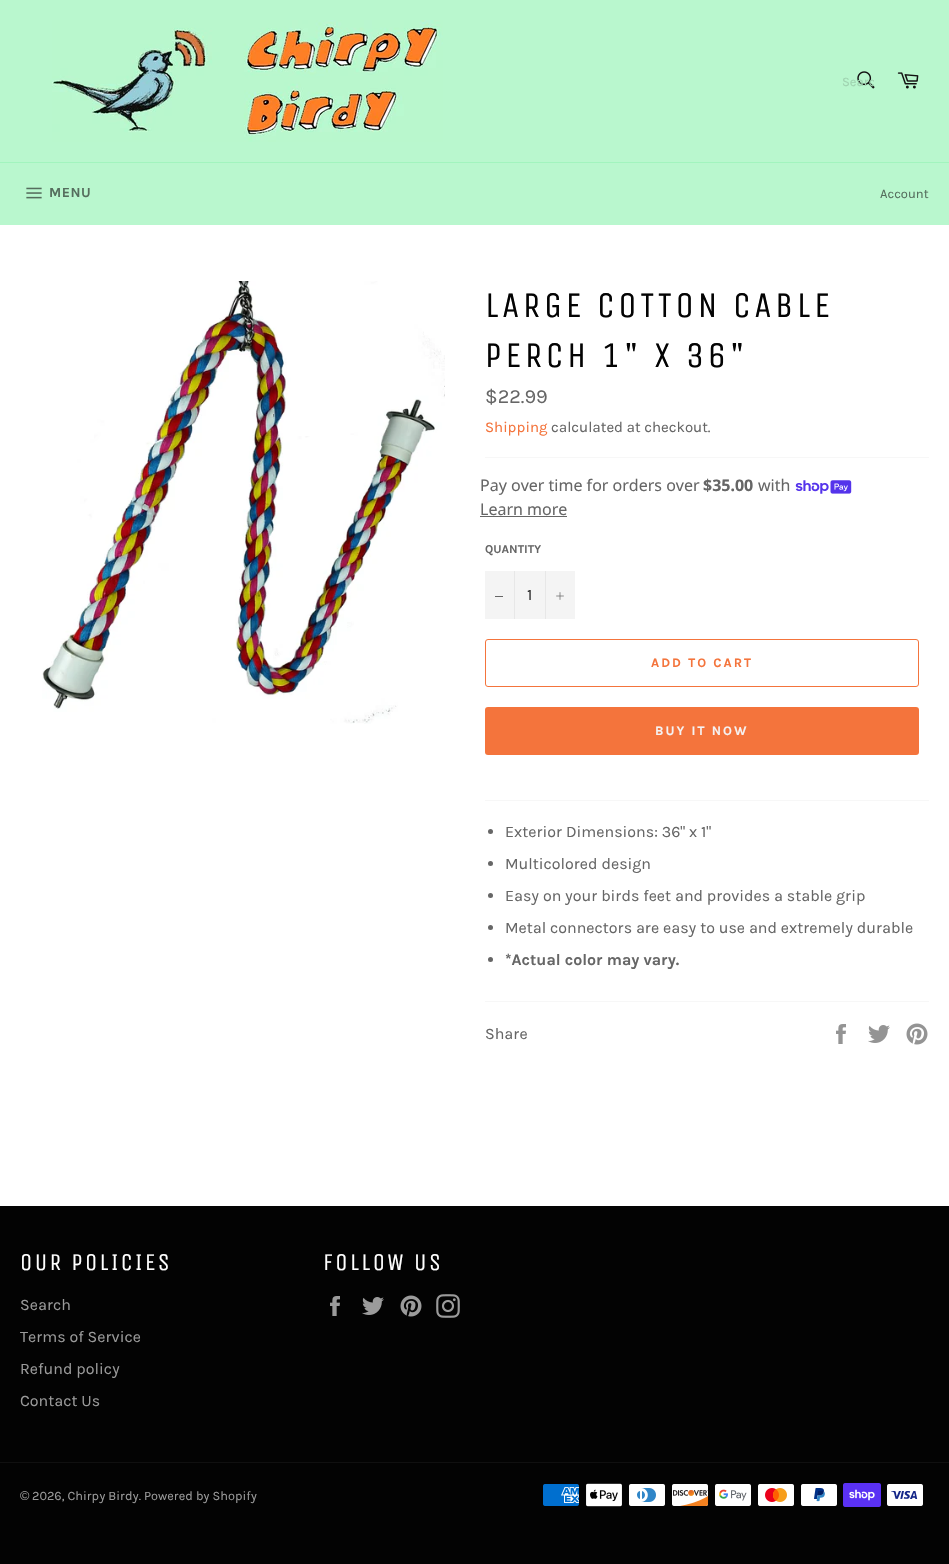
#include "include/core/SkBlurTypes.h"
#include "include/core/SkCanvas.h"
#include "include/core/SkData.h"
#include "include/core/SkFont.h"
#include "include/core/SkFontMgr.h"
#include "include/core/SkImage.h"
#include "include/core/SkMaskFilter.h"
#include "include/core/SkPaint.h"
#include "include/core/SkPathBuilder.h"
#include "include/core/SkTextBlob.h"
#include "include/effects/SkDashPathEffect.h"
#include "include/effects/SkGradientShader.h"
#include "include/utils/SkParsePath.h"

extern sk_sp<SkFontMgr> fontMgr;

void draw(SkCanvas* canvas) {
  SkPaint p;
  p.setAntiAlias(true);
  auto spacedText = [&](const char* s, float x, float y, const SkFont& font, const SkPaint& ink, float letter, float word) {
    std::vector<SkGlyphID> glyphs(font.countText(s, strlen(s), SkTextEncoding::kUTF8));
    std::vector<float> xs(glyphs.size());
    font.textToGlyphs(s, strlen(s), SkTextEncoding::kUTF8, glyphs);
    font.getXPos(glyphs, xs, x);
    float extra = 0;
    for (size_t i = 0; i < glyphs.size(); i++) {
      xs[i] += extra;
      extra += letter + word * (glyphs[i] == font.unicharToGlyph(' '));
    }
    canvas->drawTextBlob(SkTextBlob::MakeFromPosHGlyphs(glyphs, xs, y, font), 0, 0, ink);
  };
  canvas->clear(SkColorSetRGB(3, 3, 3));
  p.setColor(SkColorSetRGB(185, 247, 206));
  canvas->drawRect(SkRect::MakeLTRB(0, 0, 949, 162), p);
  canvas->drawImageRect(SkImages::DeferredFromEncodedData(SkData::MakeFromFileName("images/1.png")), SkRect::MakeLTRB(52, 20, 443, 142), SkSamplingOptions());
  canvas->drawImageRect(SkImages::DeferredFromEncodedData(SkData::MakeFromFileName("images/2.png")), SkRect::MakeLTRB(857, 71, 875, 89), SkSamplingOptions());
  canvas->drawImageRect(SkImages::DeferredFromEncodedData(SkData::MakeFromFileName("images/3.png")), SkRect::MakeLTRB(897, 72, 919, 89), SkSamplingOptions());
  canvas->drawRect(SkRect::MakeLTRB(0, 163, 949, 225), p);
  p.setColor(SkColorSetRGB(162, 244, 190));
  canvas->drawRect(SkRect::MakeLTRB(0, 162, 949, 163), p);
  canvas->drawImageRect(SkImages::DeferredFromEncodedData(SkData::MakeFromFileName("images/4.png")), SkRect::MakeLTRB(26, 187, 42, 199), SkSamplingOptions());
  p.setColor(SK_ColorWHITE);
  canvas->drawRect(SkRect::MakeLTRB(0, 225, 949, 1206), p);
  canvas->drawImageRect(SkImages::DeferredFromEncodedData(SkData::MakeFromFileName("images/5.png")), SkRect::MakeLTRB(42, 281, 445, 724), SkSamplingOptions());
  p.setColor(SkColorSetRGB(247, 247, 247));
  canvas->drawRect(SkRect::MakeLTRB(485, 457, 929, 458), p);
  canvas->drawImageRect(SkImages::DeferredFromEncodedData(SkData::MakeFromFileName("images/6.png")), SkRect::MakeLTRB(795, 480, 852, 494), SkSamplingOptions());
  p.setColor(SkColorSetRGB(102, 102, 102));
  canvas->drawRect(SkRect::MakeLTRB(480, 516, 567, 517), p);
  p.setColor(SkColorSetRGB(244, 244, 244));
  canvas->drawRect(SkRect::MakeLTRB(485, 571, 575, 619), p);
  p.setColor(SkColorSetRGB(231, 231, 231));
  canvas->drawRect(SkRect::MakeLTRB(514, 571, 515, 619), p);
  p.setColor(SkColorSetRGB(102, 102, 102));
  canvas->drawRect(SkRect::MakeLTRB(495, 596, 503, 597), p);
  p.setColor(SkColorSetRGB(231, 231, 231));
  canvas->drawRect(SkRect::MakeLTRB(545, 571, 546, 619), p);
  canvas->drawImageRect(SkImages::DeferredFromEncodedData(SkData::MakeFromFileName("images/7.png")), SkRect::MakeLTRB(556, 592, 564, 600), SkSamplingOptions());
  p.setStyle(SkPaint::kStroke_Style);
  p.setStrokeWidth(1);
  p.setColor(SkColorSetRGB(244, 116, 60));
  canvas->drawRoundRect(SkRect::MakeLTRB(485.5f, 639.5f, 918.5f, 686.5f), 2.5f, 2.5f, p);
  p.setStyle(SkPaint::kFill_Style);
  canvas->drawRoundRect(SkRect::MakeLTRB(485, 707, 919, 755), 3, 3, p);
  p.setColor(SkColorSetRGB(247, 247, 247));
  canvas->drawRect(SkRect::MakeLTRB(485, 800, 929, 801), p);
  p.setColor(SkColorSetRGB(102, 102, 102));
  canvas->drawCircle(490.5f, 831.5f, 2.5f, p);
  canvas->drawCircle(490.5f, 863.5f, 2.5f, p);
  canvas->drawCircle(490.5f, 895.5f, 2.5f, p);
  canvas->drawCircle(490.5f, 927.5f, 2.5f, p);
  canvas->drawCircle(490.5f, 959.5f, 2.5f, p);
  p.setColor(SkColorSetRGB(247, 247, 247));
  canvas->drawRect(SkRect::MakeLTRB(485, 1001, 929, 1002), p);
  canvas->drawImageRect(SkImages::DeferredFromEncodedData(SkData::MakeFromFileName("images/8.png")), SkRect::MakeLTRB(836, 1024, 846, 1044), SkSamplingOptions());
  canvas->drawImageRect(SkImages::DeferredFromEncodedData(SkData::MakeFromFileName("images/9.png")), SkRect::MakeLTRB(868, 1025, 890, 1043), SkSamplingOptions());
  canvas->drawImageRect(SkImages::DeferredFromEncodedData(SkData::MakeFromFileName("images/10.png")), SkRect::MakeLTRB(906, 1023, 928, 1045), SkSamplingOptions());
  canvas->drawImageRect(SkImages::DeferredFromEncodedData(SkData::MakeFromFileName("images/11.png")), SkRect::MakeLTRB(330, 1296, 340, 1316), SkSamplingOptions());
  canvas->drawImageRect(SkImages::DeferredFromEncodedData(SkData::MakeFromFileName("images/12.png")), SkRect::MakeLTRB(362, 1297, 384, 1315), SkSamplingOptions());
  canvas->drawImageRect(SkImages::DeferredFromEncodedData(SkData::MakeFromFileName("images/13.png")), SkRect::MakeLTRB(400, 1295, 422, 1317), SkSamplingOptions());
  canvas->drawImageRect(SkImages::DeferredFromEncodedData(SkData::MakeFromFileName("images/14.png")), SkRect::MakeLTRB(436, 1294, 460, 1318), SkSamplingOptions());
  p.setColor(SkColorSetRGB(16, 16, 16));
  canvas->drawRect(SkRect::MakeLTRB(0, 1462, 949, 1463), p);
  canvas->drawImageRect(SkImages::DeferredFromEncodedData(SkData::MakeFromFileName("images/15.png")), SkRect::MakeLTRB(543, 1484, 579, 1506), SkSamplingOptions());
  canvas->drawImageRect(SkImages::DeferredFromEncodedData(SkData::MakeFromFileName("images/16.png")), SkRect::MakeLTRB(586, 1483, 622, 1507), SkSamplingOptions());
  canvas->drawImageRect(SkImages::DeferredFromEncodedData(SkData::MakeFromFileName("images/17.png")), SkRect::MakeLTRB(629, 1484, 665, 1506), SkSamplingOptions());
  canvas->drawImageRect(SkImages::DeferredFromEncodedData(SkData::MakeFromFileName("images/18.png")), SkRect::MakeLTRB(672, 1484, 709, 1506), SkSamplingOptions());
  canvas->drawImageRect(SkImages::DeferredFromEncodedData(SkData::MakeFromFileName("images/19.png")), SkRect::MakeLTRB(715, 1484, 751, 1506), SkSamplingOptions());
  canvas->drawImageRect(SkImages::DeferredFromEncodedData(SkData::MakeFromFileName("images/20.png")), SkRect::MakeLTRB(758, 1484, 794, 1506), SkSamplingOptions());
  canvas->drawImageRect(SkImages::DeferredFromEncodedData(SkData::MakeFromFileName("images/21.png")), SkRect::MakeLTRB(801, 1484, 837, 1506), SkSamplingOptions());
  canvas->drawImageRect(SkImages::DeferredFromEncodedData(SkData::MakeFromFileName("images/22.png")), SkRect::MakeLTRB(843, 1483, 881, 1507), SkSamplingOptions());
  canvas->drawImageRect(SkImages::DeferredFromEncodedData(SkData::MakeFromFileName("images/23.png")), SkRect::MakeLTRB(887, 1484, 923, 1506), SkSamplingOptions());
  canvas->save();
  canvas->clipRect(SkRect::MakeLTRB(842, 74, 874, 89));
  SkFont font1(fontMgr->matchFamilyStyle("Karla", SkFontStyle::Normal()), 13);
  font1.setSubpixel(true);
  p.setColor(SkColorSetRGB(159, 211, 176));
  canvas->drawString("Searc", 842, 86, font1, p);
  canvas->restore();
  SkFont font2(fontMgr->matchFamilyStyle("Karla", SkFontStyle::Bold()), 14);
  font2.setSubpixel(true);
  p.setColor(SkColorSetRGB(85, 109, 93));
  spacedText("MENU", 49, 197, font2, p, 0.5f, 0);
  canvas->drawString("Account", 880, 198, font1, p);
  SkFont font3(fontMgr->matchFamilyStyle("Unica One", SkFontStyle::Normal()), 36);
  font3.setSubpixel(true);
  p.setColor(SkColorSetRGB(3, 3, 3));
  spacedText("LARGE COTTON CABLE", 485, 317, font3, p, 3.6f, 0);
  spacedText("PERCH 1\" X 36\"", 485, 367, font3, p, 3.6f, 0);
  SkFont font4(fontMgr->matchFamilyStyle("Karla", SkFontStyle::Normal()), 20);
  font4.setSubpixel(true);
  p.setColor(SkColorSetRGB(102, 102, 102));
  canvas->drawString("$22.99", 485, 403, font4, p);
  SkFont font5(fontMgr->matchFamilyStyle("Karla", SkFontStyle::Normal()), 15);
  font5.setSubpixel(true);
  p.setColor(SkColorSetRGB(244, 116, 60));
  canvas->drawString("Shipping", 485, 432, font5, p);
  p.setColor(SkColorSetRGB(102, 102, 102));
  canvas->drawString("calculated at checkout.", 551, 432, font5, p);
  SkFont font6(fontMgr->matchFamilyStyle("Noto Sans", SkFontStyle::Normal()), 16);
  font6.setSubpixel(true);
  canvas->drawString("Pay over time for orders over", 480, 491, font6, p);
  SkFont font7(fontMgr->matchFamilyStyle("Noto Sans", SkFontStyle::Bold()), 16);
  font7.setSubpixel(true);
  canvas->drawString("$35.00", 703, 491, font7, p);
  canvas->drawString("with", 758, 491, font6, p);
  canvas->drawString("Learn more", 480, 515, font6, p);
  SkFont font8(fontMgr->matchFamilyStyle("Karla", SkFontStyle::Bold()), 12);
  font8.setSubpixel(true);
  canvas->drawString("QUANTITY", 485, 553, font8, p);
  SkFont font9(fontMgr->matchFamilyStyle("Karla", SkFontStyle::Normal()), 16);
  font9.setSubpixel(true);
  p.setColor(SkColorSetRGB(51, 51, 51));
  canvas->drawString("1", 527, 600, font9, p);
  SkFont font10(fontMgr->matchFamilyStyle("Karla", SkFontStyle::Bold()), 13);
  font10.setSubpixel(true);
  p.setColor(SkColorSetRGB(244, 116, 60));
  spacedText("ADD TO CART", 651, 667, font10, p, 2, 0);
  p.setColor(SkColorSetRGB(245, 242, 242));
  spacedText("BUY IT NOW", 655, 735, font10, p, 2, 0);
  p.setColor(SkColorSetRGB(102, 102, 102));
  canvas->drawString("Exterior Dimensions: 36\" x 1\"", 505, 837, font9, p);
  canvas->drawString("Multicolored design", 505, 869, font9, p);
  canvas->drawString("Easy on your birds feet and provides a stable grip", 505, 901, font9, p);
  canvas->drawString("Metal connectors are easy to use and extremely durable", 505, 933, font9, p);
  SkFont font11(fontMgr->matchFamilyStyle("Karla", SkFontStyle::Bold()), 16);
  font11.setSubpixel(true);
  canvas->drawString("*Actual color may vary.", 505, 965, font11, p);
  canvas->drawString("Share", 485, 1039, font9, p);
  SkFont font12(fontMgr->matchFamilyStyle("Unica One", SkFontStyle::Normal()), 24);
  font12.setSubpixel(true);
  p.setColor(SK_ColorWHITE);
  spacedText("OUR POLICIES", 20, 1270, font12, p, 2.4f, 0);
  p.setColor(SkColorSetRGB(154, 154, 154));
  canvas->drawString("Search", 20, 1310, font9, p);
  canvas->drawString("Terms of Service", 20, 1342, font9, p);
  canvas->drawString("Refund policy", 20, 1374, font9, p);
  canvas->drawString("Contact Us", 20, 1406, font9, p);
  p.setColor(SK_ColorWHITE);
  spacedText("FOLLOW US", 323, 1270, font12, p, 2.4f, 0);
  SkFont font13(fontMgr->matchFamilyStyle("Liberation Sans", SkFontStyle::Normal()), 12.75f);
  font13.setSubpixel(true);
  p.setColor(SkColorSetRGB(154, 154, 154));
  canvas->drawString("©", 20, 1500, font13, p);
  SkFont font14(fontMgr->matchFamilyStyle("Karla", SkFontStyle::Normal()), 12.75f);
  font14.setSubpixel(true);
  canvas->drawString("2026, Chirpy Birdy. Powered by Shopify", 32, 1500, font14, p);
}
